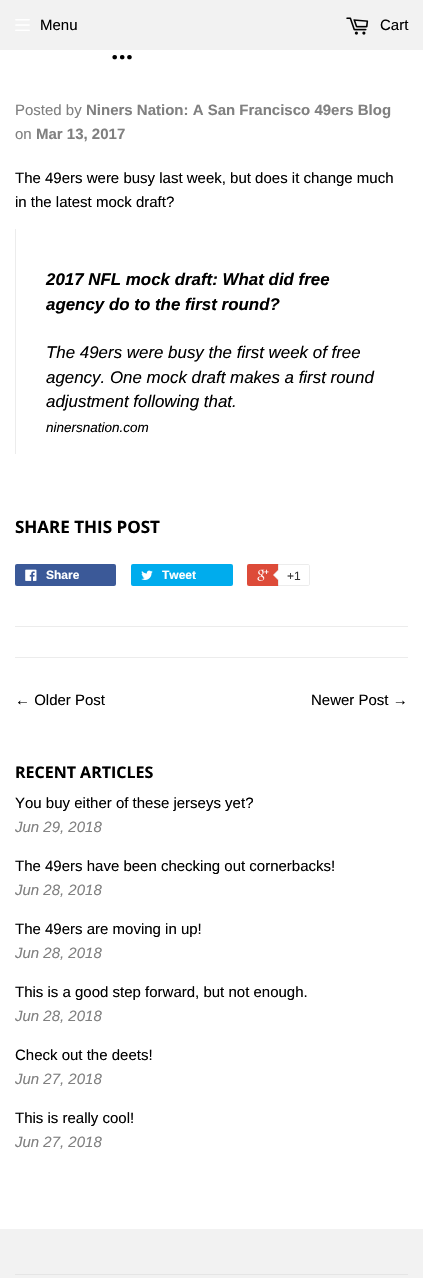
#include "include/core/SkBlurTypes.h"
#include "include/core/SkCanvas.h"
#include "include/core/SkData.h"
#include "include/core/SkFont.h"
#include "include/core/SkFontMgr.h"
#include "include/core/SkImage.h"
#include "include/core/SkMaskFilter.h"
#include "include/core/SkPaint.h"
#include "include/core/SkPathBuilder.h"
#include "include/core/SkTextBlob.h"
#include "include/effects/SkDashPathEffect.h"
#include "include/effects/SkGradientShader.h"
#include "include/utils/SkParsePath.h"

extern sk_sp<SkFontMgr> fontMgr;

void draw(SkCanvas* canvas) {
  SkPaint p;
  p.setAntiAlias(true);
  canvas->clear(SK_ColorWHITE);
  p.setColor(SkColorSetRGB(242, 242, 242));
  canvas->drawRect(SkRect::MakeLTRB(0, 0, 423, 50), p);
  canvas->drawImageRect(SkImages::DeferredFromEncodedData(SkData::MakeFromFileName("images/1.png")), SkRect::MakeLTRB(15, 19, 30, 31), SkSamplingOptions());
  canvas->drawImageRect(SkImages::DeferredFromEncodedData(SkData::MakeFromFileName("images/2.png")), SkRect::MakeLTRB(346, 17, 369, 35), SkSamplingOptions());
  p.setColor(SkColorSetRGB(236, 236, 236));
  canvas->drawRect(SkRect::MakeLTRB(15, 229, 16, 454), p);
  p.setColor(SkColorSetRGB(59, 89, 152));
  canvas->drawRoundRect(SkRect::MakeLTRB(15, 564, 116, 586), 2, 2, p);
  canvas->drawImageRect(SkImages::DeferredFromEncodedData(SkData::MakeFromFileName("images/3.png")), SkRect::MakeLTRB(25, 569, 37, 581), SkSamplingOptions());
  p.setColor(SkColorSetRGB(0, 172, 237));
  canvas->drawRoundRect(SkRect::MakeLTRB(131, 564, 233, 586), 2, 2, p);
  canvas->drawImageRect(SkImages::DeferredFromEncodedData(SkData::MakeFromFileName("images/4.png")), SkRect::MakeLTRB(141, 570, 153, 580), SkSamplingOptions());
  p.setColor(SkColorSetRGB(221, 75, 57));
  canvas->drawRoundRect(SkRect::MakeLTRB(247, 564, 308, 586), 2, 2, p);
  canvas->drawImageRect(SkImages::DeferredFromEncodedData(SkData::MakeFromFileName("images/5.png")), SkRect::MakeLTRB(257, 569, 269, 581), SkSamplingOptions());
  p.setColor(SK_ColorWHITE);
  canvas->drawPath(SkPathBuilder().moveTo(278.5f, 564.5f).lineTo(308, 564.5f).cubicTo(309, 564.5f, 309.5f, 565, 309.5f, 566).lineTo(309.5f, 584).cubicTo(309.5f, 585, 309, 585.5f, 308, 585.5f).lineTo(278.5f, 585.5f).close().detach(), p);
  p.setStyle(SkPaint::kStroke_Style);
  p.setStrokeWidth(1);
  p.setColor(SkColorSetRGB(236, 236, 236));
  canvas->drawPath(SkPathBuilder().moveTo(278.5f, 564.5f).lineTo(308, 564.5f).cubicTo(309, 564.5f, 309.5f, 565, 309.5f, 566).lineTo(309.5f, 584).cubicTo(309.5f, 585, 309, 585.5f, 308, 585.5f).lineTo(278.5f, 585.5f).close().detach(), p);
  p.setStyle(SkPaint::kFill_Style);
  canvas->drawPath(SkPathBuilder().moveTo(279, 569).lineTo(279, 581).lineTo(273, 575).close().detach(), p);
  p.setColor(SK_ColorWHITE);
  canvas->drawPath(SkPathBuilder().moveTo(280, 569).lineTo(280, 581).lineTo(274, 575).close().detach(), p);
  p.setColor(SkColorSetRGB(236, 236, 236));
  canvas->drawRect(SkRect::MakeLTRB(15, 626, 408, 627), p);
  canvas->drawRect(SkRect::MakeLTRB(15, 657, 408, 658), p);
  p.setColor(SkColorSetRGB(242, 242, 242));
  canvas->drawRect(SkRect::MakeLTRB(0, 1229, 423, 1278), p);
  p.setColor(SkColorSetRGB(229, 229, 229));
  canvas->drawRect(SkRect::MakeLTRB(15, 1274, 408, 1275), p);
  SkFont font1(fontMgr->matchFamilyStyle("Liberation Sans", SkFontStyle::Normal()), 15);
  font1.setSubpixel(true);
  p.setColor(SK_ColorBLACK);
  canvas->drawString("Menu", 40, 30, font1, p);
  canvas->drawString("Cart", 380, 30, font1, p);
  SkFont font2(fontMgr->matchFamilyStyle("Open Sans", SkFontStyle::Bold()), 26);
  font2.setSubpixel(true);
  canvas->drawString("...", 111, 59, font2, p);
  p.setColor(SkColorSetRGB(128, 128, 128));
  canvas->drawString("Posted by", 15, 115, font1, p);
  SkFont font3(fontMgr->matchFamilyStyle("Liberation Sans", SkFontStyle::Bold()), 15);
  font3.setSubpixel(true);
  canvas->drawString("Niners Nation: A San Francisco 49ers Blog", 86, 115, font3, p);
  canvas->drawString("on", 15, 139, font1, p);
  canvas->drawString("Mar 13, 2017", 36, 139, font3, p);
  p.setColor(SK_ColorBLACK);
  canvas->drawString("The 49ers were busy last week, but does it change much", 15, 183, font1, p);
  canvas->drawString("in the latest mock draft?", 15, 207, font1, p);
  SkFont font4(fontMgr->matchFamilyStyle("Liberation Sans", SkFontStyle::BoldItalic()), 16.9f);
  font4.setSubpixel(true);
  canvas->drawString("2017 NFL mock draft: What did free", 46, 285, font4, p);
  canvas->drawString("agency do to the first round?", 46, 310, font4, p);
  SkFont font5(fontMgr->matchFamilyStyle("Liberation Sans", SkFontStyle::Italic()), 16.9f);
  font5.setSubpixel(true);
  canvas->drawString("The 49ers were busy the first week of free", 46, 358, font5, p);
  canvas->drawString("agency. One mock draft makes a first round", 46, 383, font5, p);
  canvas->drawString("adjustment following that.", 46, 407, font5, p);
  SkFont font6(fontMgr->matchFamilyStyle("Liberation Sans", SkFontStyle::Italic()), 13.5f);
  font6.setSubpixel(true);
  canvas->drawString("ninersnation.com", 46, 432, font6, p);
  SkFont font7(fontMgr->matchFamilyStyle("Open Sans", SkFontStyle::Bold()), 17);
  font7.setSubpixel(true);
  canvas->drawString("SHARE THIS POST", 15, 533, font7, p);
  SkFont font8(fontMgr->matchFamilyStyle("Liberation Sans", SkFontStyle::Bold()), 12);
  font8.setSubpixel(true);
  p.setColor(SK_ColorWHITE);
  canvas->drawString("Share", 46, 579, font8, p);
  canvas->drawString("Tweet", 162, 579, font8, p);
  SkFont font9(fontMgr->matchFamilyStyle("Liberation Sans", SkFontStyle::Normal()), 12);
  font9.setSubpixel(true);
  p.setColor(SkColorSetRGB(51, 51, 51));
  canvas->drawString("+1", 287, 580, font9, p);
  p.setColor(SK_ColorBLACK);
  canvas->drawString("← Older Post", 15, 705, font1, p);
  canvas->drawString("Newer Post →", 311, 705, font1, p);
  SkFont font10(fontMgr->matchFamilyStyle("Open Sans", SkFontStyle::Bold()), 16);
  font10.setSubpixel(true);
  canvas->drawString("RECENT ARTICLES", 15, 778, font10, p);
  canvas->drawString("You buy either of these jerseys yet?", 15, 808, font1, p);
  SkFont font11(fontMgr->matchFamilyStyle("Liberation Sans", SkFontStyle::Italic()), 15);
  font11.setSubpixel(true);
  p.setColor(SkColorSetRGB(128, 128, 128));
  canvas->drawString("Jun 29, 2018", 15, 832, font11, p);
  p.setColor(SK_ColorBLACK);
  canvas->drawString("The 49ers have been checking out cornerbacks!", 15, 871, font1, p);
  p.setColor(SkColorSetRGB(128, 128, 128));
  canvas->drawString("Jun 28, 2018", 15, 895, font11, p);
  p.setColor(SK_ColorBLACK);
  canvas->drawString("The 49ers are moving in up!", 15, 934, font1, p);
  p.setColor(SkColorSetRGB(128, 128, 128));
  canvas->drawString("Jun 28, 2018", 15, 958, font11, p);
  p.setColor(SK_ColorBLACK);
  canvas->drawString("This is a good step forward, but not enough.", 15, 997, font1, p);
  p.setColor(SkColorSetRGB(128, 128, 128));
  canvas->drawString("Jun 28, 2018", 15, 1021, font11, p);
  p.setColor(SK_ColorBLACK);
  canvas->drawString("Check out the deets!", 15, 1060, font1, p);
  p.setColor(SkColorSetRGB(128, 128, 128));
  canvas->drawString("Jun 27, 2018", 15, 1084, font11, p);
  p.setColor(SK_ColorBLACK);
  canvas->drawString("This is really cool!", 15, 1123, font1, p);
  p.setColor(SkColorSetRGB(128, 128, 128));
  canvas->drawString("Jun 27, 2018", 15, 1147, font11, p);
}
